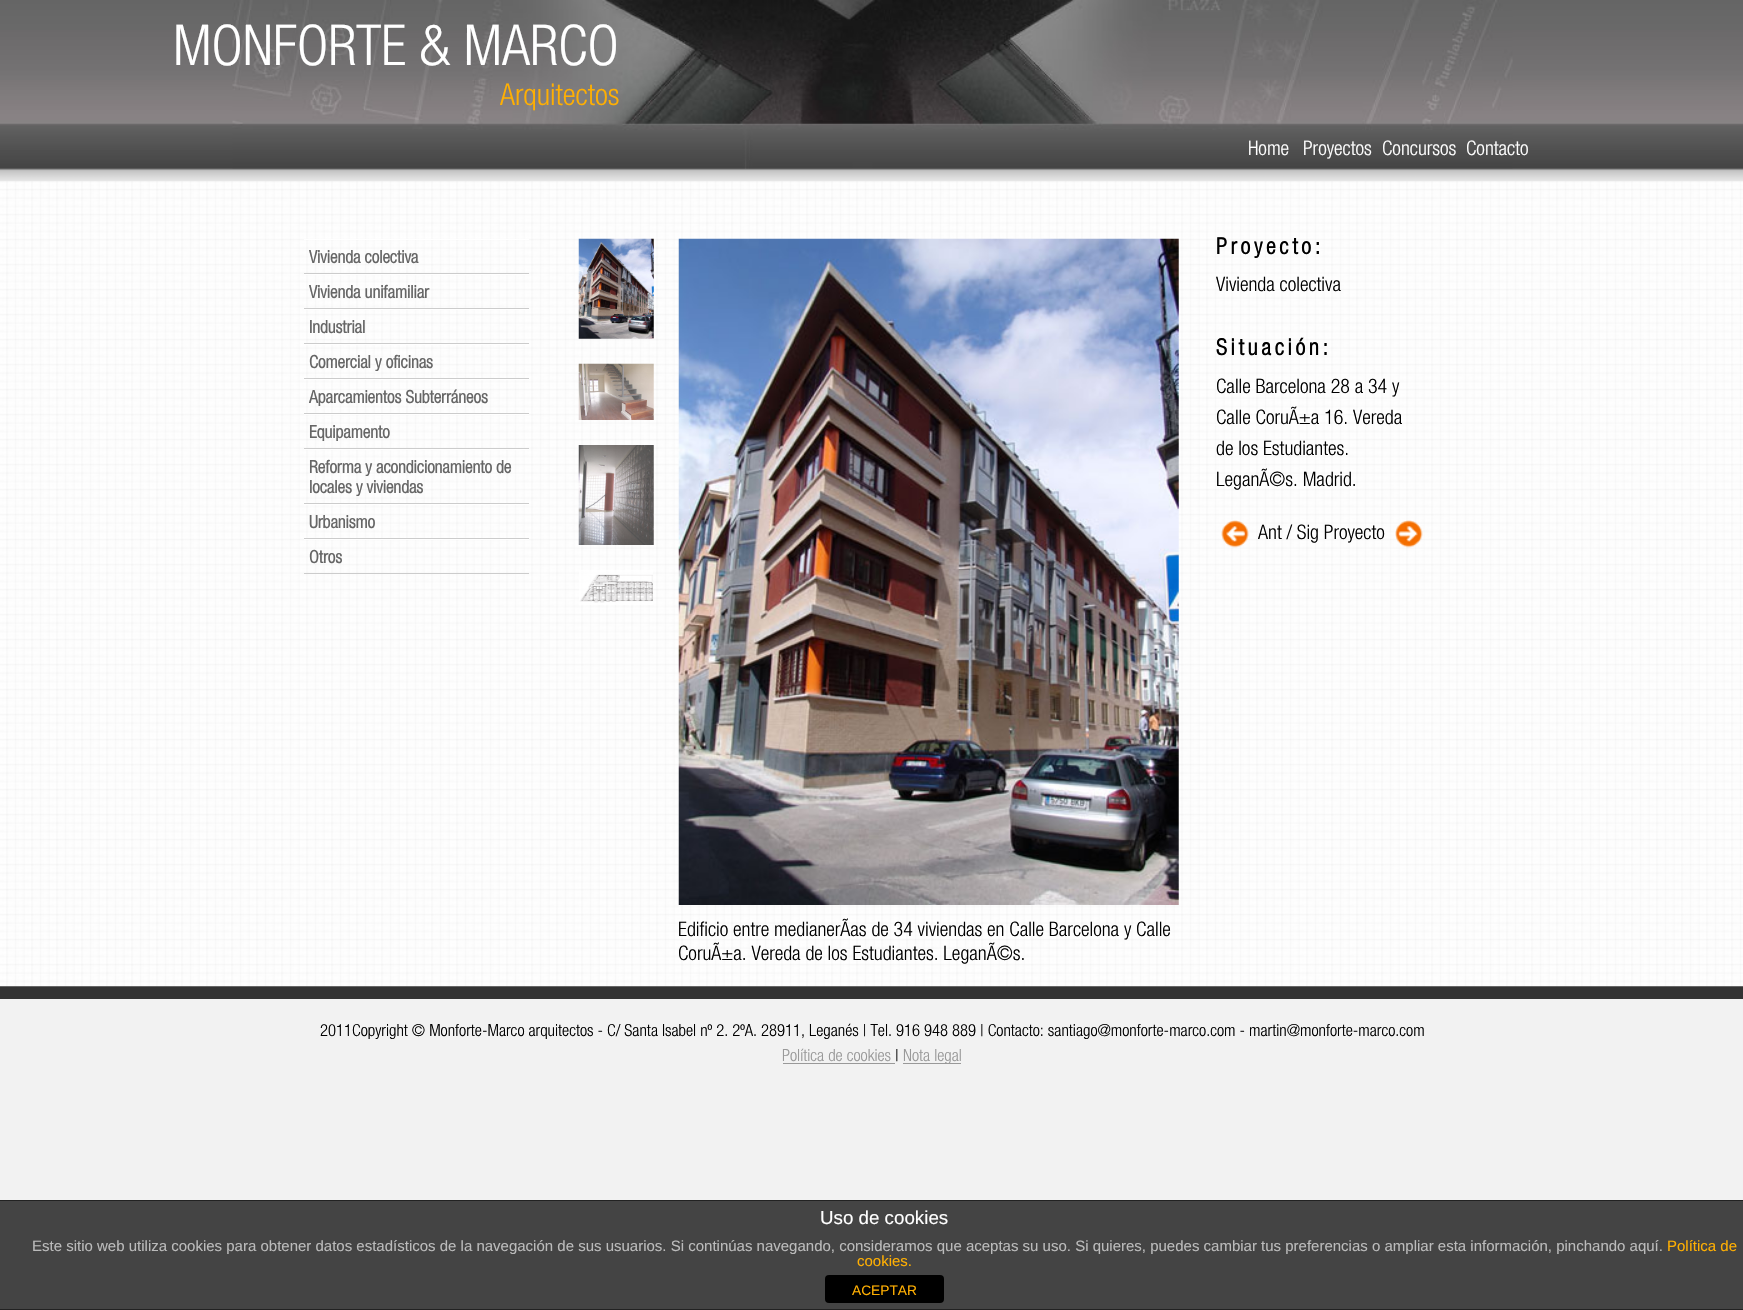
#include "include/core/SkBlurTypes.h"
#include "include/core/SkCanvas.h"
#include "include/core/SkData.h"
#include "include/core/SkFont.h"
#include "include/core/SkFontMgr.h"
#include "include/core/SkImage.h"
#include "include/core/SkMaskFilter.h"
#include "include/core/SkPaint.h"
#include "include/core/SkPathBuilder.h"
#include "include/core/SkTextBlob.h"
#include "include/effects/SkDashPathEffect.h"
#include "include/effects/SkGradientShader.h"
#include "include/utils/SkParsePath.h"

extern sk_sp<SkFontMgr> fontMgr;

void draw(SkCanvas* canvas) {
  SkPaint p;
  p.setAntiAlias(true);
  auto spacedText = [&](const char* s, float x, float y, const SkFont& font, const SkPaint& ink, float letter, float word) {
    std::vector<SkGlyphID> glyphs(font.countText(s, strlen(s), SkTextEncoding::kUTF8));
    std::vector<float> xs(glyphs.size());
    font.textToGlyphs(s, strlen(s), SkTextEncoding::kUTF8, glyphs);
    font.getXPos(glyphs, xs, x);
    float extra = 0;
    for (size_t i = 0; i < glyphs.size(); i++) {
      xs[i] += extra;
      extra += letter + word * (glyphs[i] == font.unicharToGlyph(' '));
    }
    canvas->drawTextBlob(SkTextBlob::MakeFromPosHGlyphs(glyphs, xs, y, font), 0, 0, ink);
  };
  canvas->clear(SkColorSetRGB(242, 242, 242));
  canvas->drawImageRect(SkImages::DeferredFromEncodedData(SkData::MakeFromFileName("images/1.png")), SkRect::MakeLTRB(0, 0, 1743, 182), SkSamplingOptions());
  canvas->drawImageRect(SkImages::DeferredFromEncodedData(SkData::MakeFromFileName("images/2.png")), SkRect::MakeLTRB(232, 0, 1513, 169), SkSamplingOptions());
  p.setColor(SkColorSetRGB(51, 51, 51));
  canvas->drawRect(SkRect::MakeLTRB(0, 986, 1743, 999), p);
  canvas->drawImageRect(SkImages::DeferredFromEncodedData(SkData::MakeFromFileName("images/3.png")), SkRect::MakeLTRB(0, 181, 1743, 987), SkSamplingOptions());
  p.setColor(SK_ColorWHITE);
  canvas->drawRect(SkRect::MakeLTRB(304, 239, 529, 240), p);
  p.setColor(SkColorSetRGB(204, 204, 204));
  canvas->drawRect(SkRect::MakeLTRB(304, 273, 529, 274), p);
  p.setColor(SK_ColorWHITE);
  canvas->drawRect(SkRect::MakeLTRB(304, 274, 529, 275), p);
  p.setColor(SkColorSetRGB(204, 204, 204));
  canvas->drawRect(SkRect::MakeLTRB(304, 308, 529, 309), p);
  p.setColor(SK_ColorWHITE);
  canvas->drawRect(SkRect::MakeLTRB(304, 309, 529, 310), p);
  p.setColor(SkColorSetRGB(204, 204, 204));
  canvas->drawRect(SkRect::MakeLTRB(304, 343, 529, 344), p);
  p.setColor(SK_ColorWHITE);
  canvas->drawRect(SkRect::MakeLTRB(304, 344, 529, 345), p);
  p.setColor(SkColorSetRGB(204, 204, 204));
  canvas->drawRect(SkRect::MakeLTRB(304, 378, 529, 379), p);
  p.setColor(SK_ColorWHITE);
  canvas->drawRect(SkRect::MakeLTRB(304, 379, 529, 380), p);
  p.setColor(SkColorSetRGB(204, 204, 204));
  canvas->drawRect(SkRect::MakeLTRB(304, 413, 529, 414), p);
  p.setColor(SK_ColorWHITE);
  canvas->drawRect(SkRect::MakeLTRB(304, 414, 529, 415), p);
  p.setColor(SkColorSetRGB(204, 204, 204));
  canvas->drawRect(SkRect::MakeLTRB(304, 448, 529, 449), p);
  p.setColor(SK_ColorWHITE);
  canvas->drawRect(SkRect::MakeLTRB(304, 449, 529, 450), p);
  p.setColor(SkColorSetRGB(204, 204, 204));
  canvas->drawRect(SkRect::MakeLTRB(304, 503, 529, 504), p);
  p.setColor(SK_ColorWHITE);
  canvas->drawRect(SkRect::MakeLTRB(304, 504, 529, 505), p);
  p.setColor(SkColorSetRGB(204, 204, 204));
  canvas->drawRect(SkRect::MakeLTRB(304, 538, 529, 539), p);
  p.setColor(SK_ColorWHITE);
  canvas->drawRect(SkRect::MakeLTRB(304, 539, 529, 540), p);
  p.setColor(SkColorSetRGB(204, 204, 204));
  canvas->drawRect(SkRect::MakeLTRB(304, 573, 529, 574), p);
  canvas->drawImageRect(SkImages::DeferredFromEncodedData(SkData::MakeFromFileName("images/4.png")), SkRect::MakeLTRB(1221, 520, 1249, 548), SkSamplingOptions());
  canvas->drawImageRect(SkImages::DeferredFromEncodedData(SkData::MakeFromFileName("images/5.png")), SkRect::MakeLTRB(1395, 520, 1423, 548), SkSamplingOptions());
  canvas->drawImageRect(SkImages::DeferredFromEncodedData(SkData::MakeFromFileName("images/6.png")), SkRect::MakeLTRB(578, 238, 654, 339), SkSamplingOptions());
  canvas->drawImageRect(SkImages::DeferredFromEncodedData(SkData::MakeFromFileName("images/7.png")), SkRect::MakeLTRB(578, 363, 654, 420), SkSamplingOptions());
  canvas->drawImageRect(SkImages::DeferredFromEncodedData(SkData::MakeFromFileName("images/8.png")), SkRect::MakeLTRB(578, 445, 654, 545), SkSamplingOptions());
  canvas->drawImageRect(SkImages::DeferredFromEncodedData(SkData::MakeFromFileName("images/9.png")), SkRect::MakeLTRB(579, 570, 653, 605), SkSamplingOptions());
  canvas->drawImageRect(SkImages::DeferredFromEncodedData(SkData::MakeFromFileName("images/10.png")), SkRect::MakeLTRB(678, 238, 1179, 905), SkSamplingOptions());
  p.setColor(SkColorSetRGB(153, 153, 153));
  canvas->drawRect(SkRect::MakeLTRB(783, 1063, 895, 1064), p);
  canvas->drawRect(SkRect::MakeLTRB(903, 1063, 961, 1064), p);
  p.setColor(SkColorSetRGB(68, 68, 68));
  canvas->drawRect(SkRect::MakeLTRB(0, 1201, 1743, 1309), p);
  p.setColor(SkColorSetRGB(34, 34, 34));
  canvas->drawRect(SkRect::MakeLTRB(0, 1200, 1743, 1201), p);
  canvas->drawRect(SkRect::MakeLTRB(0, 1309, 1743, 1310), p);
  p.setColor(SK_ColorBLACK);
  canvas->drawRoundRect(SkRect::MakeLTRB(825, 1275, 944, 1303), 4, 4, p);
  SkFont font1(fontMgr->matchFamilyStyle("Helvetica Neue", SkFontStyle(300, SkFontStyle::kNormal_Width, SkFontStyle::kUpright_Slant)), 56.25f);
  font1.setSubpixel(true);
  p.setColor(SK_ColorWHITE);
  canvas->drawString("MONFORTE & MARCO", 173, 65, font1, p);
  SkFont font2(fontMgr->matchFamilyStyle("Helvetica Neue", SkFontStyle(300, SkFontStyle::kNormal_Width, SkFontStyle::kUpright_Slant)), 30);
  font2.setSubpixel(true);
  p.setColor(SkColorSetRGB(255, 175, 2));
  canvas->drawString("Arquitectos", 500, 105, font2, p);
  SkFont font3(fontMgr->matchFamilyStyle("Helvetica Neue", SkFontStyle(300, SkFontStyle::kNormal_Width, SkFontStyle::kUpright_Slant)), 20);
  font3.setSubpixel(true);
  p.setColor(SK_ColorWHITE);
  canvas->drawString("Home", 1248, 155, font3, p);
  canvas->drawString("Proyectos", 1303, 155, font3, p);
  canvas->drawString("Concursos", 1382, 155, font3, p);
  canvas->drawString("Contacto", 1466, 155, font3, p);
  SkFont font4(fontMgr->matchFamilyStyle("Helvetica Neue", SkFontStyle::Bold()), 17.5f);
  font4.setSubpixel(true);
  p.setColor(SkColorSetRGB(102, 102, 102));
  canvas->drawString("Vivienda colectiva", 309, 263, font4, p);
  canvas->drawString("Vivienda unifamiliar", 309, 298, font4, p);
  canvas->drawString("Industrial", 309, 333, font4, p);
  canvas->drawString("Comercial y oficinas", 309, 368, font4, p);
  canvas->drawString("Aparcamientos Subterráneos", 309, 403, font4, p);
  canvas->drawString("Equipamento", 309, 438, font4, p);
  canvas->drawString("Reforma y acondicionamiento de", 309, 473, font4, p);
  canvas->drawString("locales y viviendas", 309, 493, font4, p);
  canvas->drawString("Urbanismo", 309, 528, font4, p);
  canvas->drawString("Otros", 309, 563, font4, p);
  SkFont font5(fontMgr->matchFamilyStyle("Helvetica Neue", SkFontStyle::Bold()), 22.5f);
  font5.setSubpixel(true);
  p.setColor(SK_ColorBLACK);
  spacedText("Proyecto:", 1216, 254, font5, p, 3.75f, 0);
  canvas->drawString("Vivienda colectiva", 1216, 291, font3, p);
  spacedText("Situación:", 1216, 355, font5, p, 3.75f, 0);
  canvas->drawString("Calle Barcelona 28 a 34 y", 1216, 393, font3, p);
  canvas->drawString("Calle CoruÃ±a 16. Vereda", 1216, 424, font3, p);
  canvas->drawString("de los Estudiantes.", 1216, 455, font3, p);
  canvas->drawString("LeganÃ©s. Madrid.", 1216, 486, font3, p);
  canvas->drawString("Ant / Sig Proyecto", 1258, 539, font3, p);
  canvas->drawString("Edificio entre medianerÃas de 34 viviendas en Calle Barcelona y Calle", 678, 936, font3, p);
  canvas->drawString("CoruÃ±a. Vereda de los Estudiantes. LeganÃ©s.", 678, 960, font3, p);
  SkFont font6(fontMgr->matchFamilyStyle("Helvetica Neue", SkFontStyle(300, SkFontStyle::kNormal_Width, SkFontStyle::kUpright_Slant)), 16.67f);
  font6.setSubpixel(true);
  canvas->drawString("2011Copyright © Monforte-Marco arquitectos - C/ Santa Isabel nº 2. 2ºA. 28911, Leganés | Tel. 916 948 889 | Contacto: santiago@monforte-marco.com - martin@monforte-marco.com", 320, 1036, font6, p);
  p.setColor(SkColorSetRGB(153, 153, 153));
  canvas->drawString("Política de cookies", 782, 1061, font6, p);
  p.setColor(SK_ColorBLACK);
  canvas->drawString("|", 895, 1061, font6, p);
  p.setColor(SkColorSetRGB(153, 153, 153));
  canvas->drawString("Nota legal", 903, 1061, font6, p);
  SkFont font7(fontMgr->matchFamilyStyle("Liberation Sans", SkFontStyle::Normal()), 18.75f);
  font7.setSubpixel(true);
  p.setColor(SK_ColorWHITE);
  canvas->drawString("Uso de cookies", 820, 1224, font7, p);
  SkFont font8(fontMgr->matchFamilyStyle("Liberation Sans", SkFontStyle::Normal()), 15);
  font8.setSubpixel(true);
  p.setColor(SkColorSetRGB(187, 187, 187));
  canvas->drawString("Este sitio web utiliza cookies para obtener datos estadísticos de la navegación de sus usuarios. Si continúas navegando, consideramos que aceptas su uso. Si quieres, puedes cambiar tus preferencias o ampliar esta información, pinchando aquí.", 32, 1251, font8, p);
  p.setColor(SkColorSetRGB(255, 175, 2));
  canvas->drawString("Política de", 1667, 1251, font8, p);
  canvas->drawString("cookies.", 857, 1266, font8, p);
  SkFont font9(fontMgr->matchFamilyStyle("Liberation Sans", SkFontStyle::Normal()), 13.75f);
  font9.setSubpixel(true);
  canvas->drawString("ACEPTAR", 852, 1295, font9, p);
}
